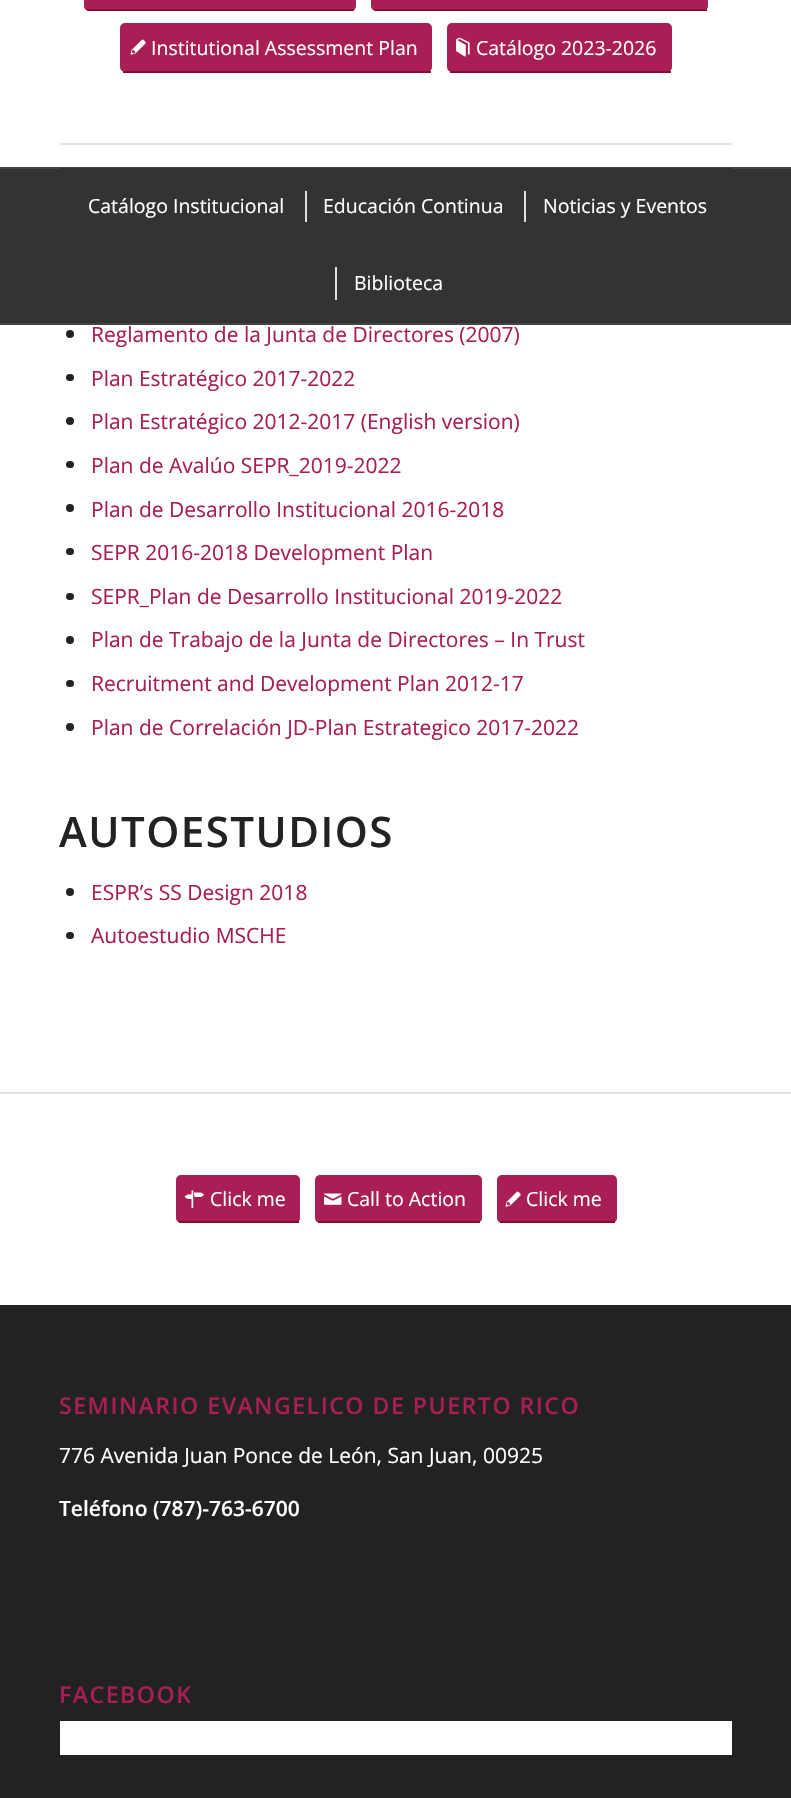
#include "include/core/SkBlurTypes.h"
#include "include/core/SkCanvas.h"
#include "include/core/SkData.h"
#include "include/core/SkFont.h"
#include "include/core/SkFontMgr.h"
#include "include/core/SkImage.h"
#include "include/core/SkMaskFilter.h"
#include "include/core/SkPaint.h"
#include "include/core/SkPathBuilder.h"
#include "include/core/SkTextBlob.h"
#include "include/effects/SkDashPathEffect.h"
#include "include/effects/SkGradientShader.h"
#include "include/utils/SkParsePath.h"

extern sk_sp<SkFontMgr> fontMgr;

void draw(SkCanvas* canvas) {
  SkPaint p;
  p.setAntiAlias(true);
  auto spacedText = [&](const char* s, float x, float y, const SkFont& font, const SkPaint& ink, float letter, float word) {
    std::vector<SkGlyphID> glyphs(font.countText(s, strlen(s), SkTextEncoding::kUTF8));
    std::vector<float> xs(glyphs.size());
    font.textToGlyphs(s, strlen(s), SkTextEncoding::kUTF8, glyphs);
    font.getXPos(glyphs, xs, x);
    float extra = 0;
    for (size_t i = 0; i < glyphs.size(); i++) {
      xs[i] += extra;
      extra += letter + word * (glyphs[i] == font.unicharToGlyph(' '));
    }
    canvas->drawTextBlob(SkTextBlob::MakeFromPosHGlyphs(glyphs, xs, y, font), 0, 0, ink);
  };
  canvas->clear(SK_ColorWHITE);
  p.setColor(SkColorSetRGB(168, 30, 85));
  canvas->drawRoundRect(SkRect::MakeLTRB(84, -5, 356, 11), 5, 5, p);
  p.setColor(SkColorSetRGB(134, 12, 51));
  canvas->drawRect(SkRect::MakeLTRB(87, 9, 354, 11), p);
  p.setColor(SkColorSetRGB(168, 30, 85));
  canvas->drawRoundRect(SkRect::MakeLTRB(371, -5, 708, 11), 5, 5, p);
  p.setColor(SkColorSetRGB(134, 12, 51));
  canvas->drawRect(SkRect::MakeLTRB(374, 9, 707, 11), p);
  p.setColor(SkColorSetRGB(168, 30, 85));
  canvas->drawRoundRect(SkRect::MakeLTRB(120, 23, 432, 72), 5, 5, p);
  p.setColor(SkColorSetRGB(134, 12, 51));
  canvas->drawRect(SkRect::MakeLTRB(123, 71, 431, 73), p);
  canvas->drawImageRect(SkImages::DeferredFromEncodedData(SkData::MakeFromFileName("images/1.png")), SkRect::MakeLTRB(130, 39, 146, 55), SkSamplingOptions());
  p.setColor(SkColorSetRGB(168, 30, 85));
  canvas->drawRoundRect(SkRect::MakeLTRB(447, 23, 672, 72), 5, 5, p);
  p.setColor(SkColorSetRGB(134, 12, 51));
  canvas->drawRect(SkRect::MakeLTRB(450, 71, 671, 73), p);
  canvas->drawImageRect(SkImages::DeferredFromEncodedData(SkData::MakeFromFileName("images/2.png")), SkRect::MakeLTRB(456, 37, 470, 57), SkSamplingOptions());
  p.setColor(SkColorSetRGB(225, 225, 225));
  canvas->drawRect(SkRect::MakeLTRB(60, 143, 732, 145), p);
  p.setColor(SkColorSetRGB(35, 35, 35));
  canvas->drawCircle(70, 334, 4, p);
  canvas->drawRoundRect(SkRect::MakeLTRB(66, 374, 74, 381), 3.5f, 3.5f, p);
  canvas->drawCircle(70, 421, 4, p);
  canvas->drawRoundRect(SkRect::MakeLTRB(66, 461, 74, 468), 3.5f, 3.5f, p);
  canvas->drawCircle(70, 508, 4, p);
  canvas->drawRoundRect(SkRect::MakeLTRB(66, 548, 74, 555), 3.5f, 3.5f, p);
  canvas->drawRoundRect(SkRect::MakeLTRB(66, 593, 74, 600), 3.5f, 3.5f, p);
  canvas->drawCircle(70, 640, 4, p);
  canvas->drawRoundRect(SkRect::MakeLTRB(66, 680, 74, 687), 3.5f, 3.5f, p);
  canvas->drawCircle(70, 727, 4, p);
  canvas->drawCircle(70, 892, 4, p);
  canvas->drawRoundRect(SkRect::MakeLTRB(66, 932, 74, 939), 3.5f, 3.5f, p);
  p.setColor(SkColorSetRGB(51, 51, 51));
  canvas->drawRect(SkRect::MakeLTRB(0, 169, 791, 323), p);
  p.setColor(SkColorSetRGB(68, 68, 68));
  canvas->drawRect(SkRect::MakeLTRB(0, 167, 791, 169), p);
  canvas->drawRect(SkRect::MakeLTRB(0, 323, 791, 325), p);
  p.setColor(SkColorSetRGB(51, 51, 51));
  canvas->drawRect(SkRect::MakeLTRB(60, 168, 732, 169), p);
  p.setColor(SkColorSetRGB(225, 225, 225));
  canvas->drawRect(SkRect::MakeLTRB(305, 191, 307, 222), p);
  canvas->drawRect(SkRect::MakeLTRB(524, 191, 526, 222), p);
  canvas->drawRect(SkRect::MakeLTRB(335, 267, 337, 300), p);
  canvas->drawRect(SkRect::MakeLTRB(0, 1092, 791, 1094), p);
  p.setColor(SkColorSetRGB(168, 30, 85));
  canvas->drawRoundRect(SkRect::MakeLTRB(176, 1175, 300, 1223), 5, 5, p);
  p.setColor(SkColorSetRGB(134, 12, 51));
  canvas->drawRect(SkRect::MakeLTRB(179, 1221, 299, 1223), p);
  canvas->drawImageRect(SkImages::DeferredFromEncodedData(SkData::MakeFromFileName("images/3.png")), SkRect::MakeLTRB(184, 1190, 204, 1208), SkSamplingOptions());
  p.setColor(SkColorSetRGB(168, 30, 85));
  canvas->drawRoundRect(SkRect::MakeLTRB(315, 1175, 482, 1223), 5, 5, p);
  p.setColor(SkColorSetRGB(134, 12, 51));
  canvas->drawRect(SkRect::MakeLTRB(318, 1221, 480, 1223), p);
  canvas->drawImageRect(SkImages::DeferredFromEncodedData(SkData::MakeFromFileName("images/4.png")), SkRect::MakeLTRB(324, 1193, 342, 1205), SkSamplingOptions());
  p.setColor(SkColorSetRGB(168, 30, 85));
  canvas->drawRoundRect(SkRect::MakeLTRB(497, 1175, 617, 1223), 5, 5, p);
  p.setColor(SkColorSetRGB(134, 12, 51));
  canvas->drawRect(SkRect::MakeLTRB(500, 1221, 615, 1223), p);
  canvas->drawImageRect(SkImages::DeferredFromEncodedData(SkData::MakeFromFileName("images/1.png")), SkRect::MakeLTRB(505, 1191, 521, 1207), SkSamplingOptions());
  p.setColor(SkColorSetRGB(34, 34, 34));
  canvas->drawRect(SkRect::MakeLTRB(0, 1305, 791, 1798), p);
  p.setColor(SK_ColorWHITE);
  canvas->drawRect(SkRect::MakeLTRB(60, 1721, 732, 1755), p);
  SkFont font1(fontMgr->matchFamilyStyle("Open Sans", SkFontStyle::Normal()), 19.5f);
  font1.setSubpixel(true);
  canvas->drawString("Institutional Assessment Plan", 151, 55, font1, p);
  canvas->drawString("Catálogo 2023-2026", 476, 55, font1, p);
  SkFont font2(fontMgr->matchFamilyStyle("Open Sans", SkFontStyle::Normal()), 21);
  font2.setSubpixel(true);
  p.setColor(SkColorSetRGB(168, 30, 85));
  canvas->drawString("Reglamento de la Junta de Directores (2007)", 91, 342, font2, p);
  canvas->drawString("Plan Estratégico 2017-2022", 91, 386, font2, p);
  canvas->drawString("Plan Estratégico 2012-2017 (English version)", 91, 429, font2, p);
  canvas->drawString("Plan de Avalúo SEPR_2019-2022", 91, 473, font2, p);
  canvas->drawString("Plan de Desarrollo Institucional 2016-2018", 91, 517, font2, p);
  canvas->drawString("SEPR 2016-2018 Development Plan", 91, 560, font2, p);
  canvas->drawString("SEPR_Plan de Desarrollo Institucional 2019-2022", 91, 604, font2, p);
  canvas->drawString("Plan de Trabajo de la Junta de Directores – In Trust", 91, 647, font2, p);
  canvas->drawString("Recruitment and Development Plan 2012-17", 91, 691, font2, p);
  canvas->drawString("Plan de Correlación JD-Plan Estrategico 2017-2022", 91, 735, font2, p);
  SkFont font3(fontMgr->matchFamilyStyle("Open Sans", SkFontStyle(600, SkFontStyle::kNormal_Width, SkFontStyle::kUpright_Slant)), 42);
  font3.setSubpixel(true);
  p.setColor(SkColorSetRGB(34, 34, 34));
  spacedText("AUTOESTUDIOS", 59, 847, font3, p, 1.5f, 0);
  p.setColor(SkColorSetRGB(168, 30, 85));
  canvas->drawString("ESPR’s SS Design 2018", 91, 900, font2, p);
  canvas->drawString("Autoestudio MSCHE", 91, 943, font2, p);
  p.setColor(SK_ColorWHITE);
  canvas->drawString("Catálogo Institucional", 88, 213, font1, p);
  canvas->drawString("Educación Continua", 323, 213, font1, p);
  canvas->drawString("Noticias y Eventos", 543, 213, font1, p);
  canvas->drawString("Biblioteca", 354, 290, font1, p);
  canvas->drawString("Click me", 210, 1206, font1, p);
  canvas->drawString("Call to Action", 347, 1206, font1, p);
  canvas->drawString("Click me", 526, 1206, font1, p);
  SkFont font4(fontMgr->matchFamilyStyle("Open Sans", SkFontStyle(600, SkFontStyle::kNormal_Width, SkFontStyle::kUpright_Slant)), 23.1f);
  font4.setSubpixel(true);
  p.setColor(SkColorSetRGB(168, 30, 85));
  spacedText("SEMINARIO EVANGELICO DE PUERTO RICO", 59, 1414, font4, p, 1.5f, 0);
  p.setColor(SK_ColorWHITE);
  canvas->drawString("776 Avenida Juan Ponce de León, San Juan, 00925", 59, 1463, font2, p);
  SkFont font5(fontMgr->matchFamilyStyle("Open Sans", SkFontStyle(600, SkFontStyle::kNormal_Width, SkFontStyle::kUpright_Slant)), 21);
  font5.setSubpixel(true);
  canvas->drawString("Teléfono (787)-763-6700", 59, 1516, font5, p);
  p.setColor(SkColorSetRGB(168, 30, 85));
  spacedText("FACEBOOK", 59, 1703, font4, p, 1.5f, 0);
}
